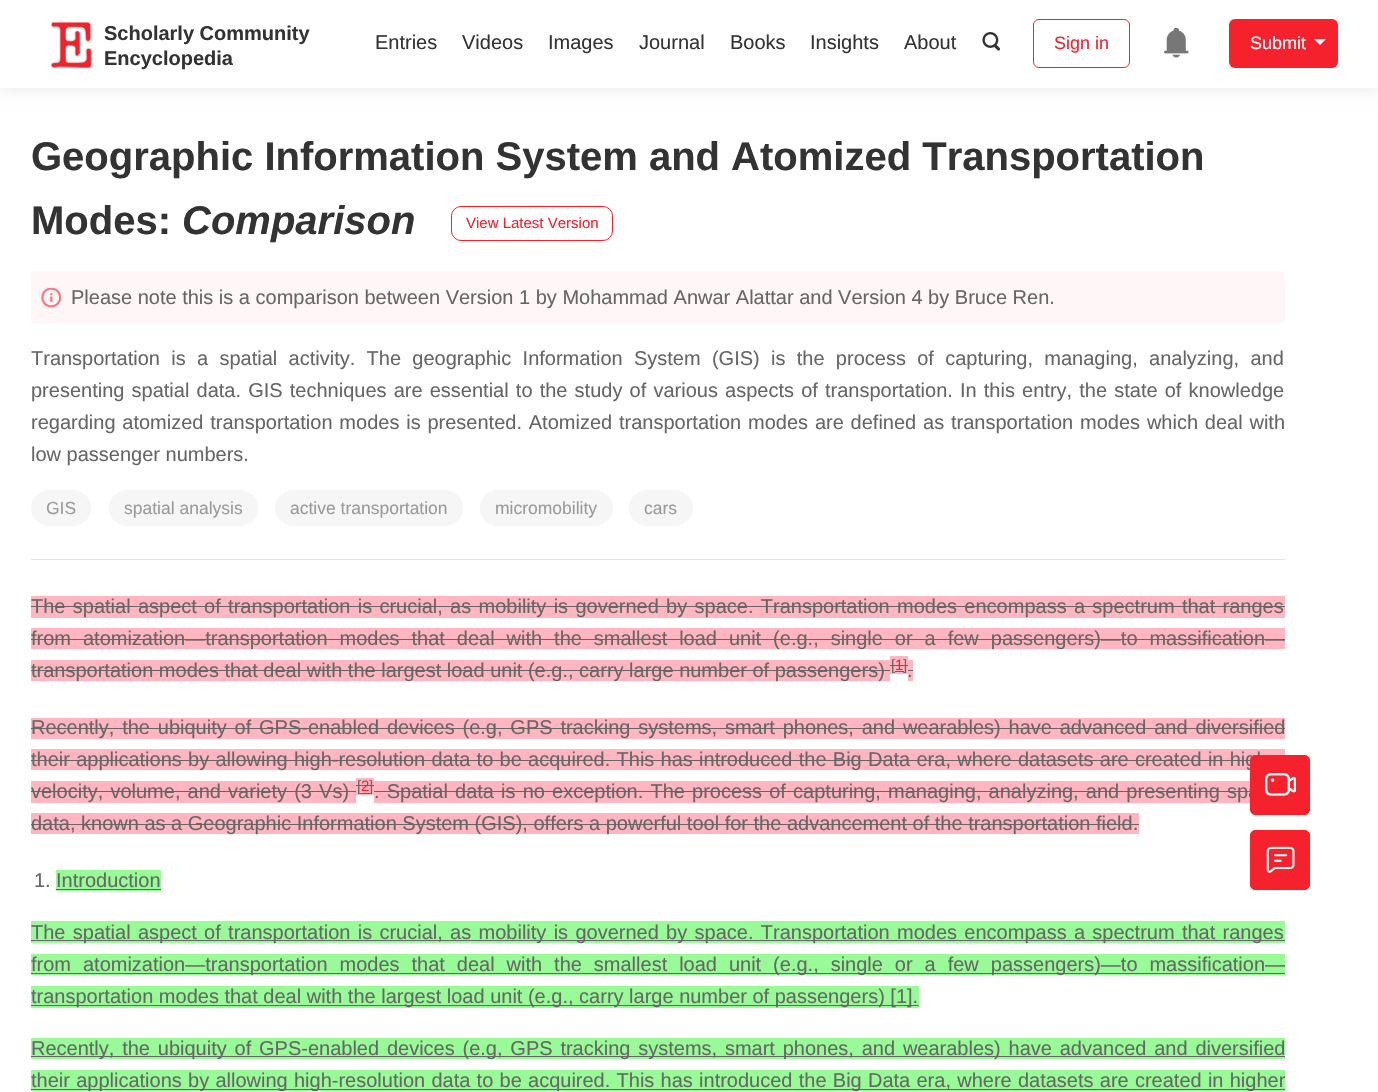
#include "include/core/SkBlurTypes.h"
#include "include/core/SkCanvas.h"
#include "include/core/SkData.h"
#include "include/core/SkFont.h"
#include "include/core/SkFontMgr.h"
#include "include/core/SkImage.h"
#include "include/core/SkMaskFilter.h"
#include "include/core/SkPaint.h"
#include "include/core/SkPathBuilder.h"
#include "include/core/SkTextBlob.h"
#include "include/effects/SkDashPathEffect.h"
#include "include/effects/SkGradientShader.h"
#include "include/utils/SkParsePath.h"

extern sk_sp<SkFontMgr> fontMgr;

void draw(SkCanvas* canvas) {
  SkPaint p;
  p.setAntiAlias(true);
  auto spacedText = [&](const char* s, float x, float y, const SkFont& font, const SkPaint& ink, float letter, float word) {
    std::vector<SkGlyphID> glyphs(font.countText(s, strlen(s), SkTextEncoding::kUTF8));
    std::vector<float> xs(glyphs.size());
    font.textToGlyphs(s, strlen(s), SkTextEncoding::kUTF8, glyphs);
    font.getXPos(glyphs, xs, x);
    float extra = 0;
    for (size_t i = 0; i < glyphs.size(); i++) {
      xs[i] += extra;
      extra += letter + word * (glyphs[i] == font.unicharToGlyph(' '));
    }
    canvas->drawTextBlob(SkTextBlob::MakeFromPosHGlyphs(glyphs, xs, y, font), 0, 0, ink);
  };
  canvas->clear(SK_ColorWHITE);
  p.setColor(SkColorSetARGB(20, 0, 0, 0));
  p.setMaskFilter(SkMaskFilter::MakeBlur(kNormal_SkBlurStyle, 7.5f));
  canvas->drawRect(SkRect::MakeLTRB(0, 3, 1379, 90), p);
  p.setMaskFilter(nullptr);
  p.setColor(SK_ColorWHITE);
  canvas->drawRect(SkRect::MakeLTRB(0, 0, 1378, 88), p);
  canvas->drawImageRect(SkImages::DeferredFromEncodedData(SkData::MakeFromFileName("images/1.png")), SkRect::MakeLTRB(50, 21, 92, 69), SkSamplingOptions());
  canvas->drawImageRect(SkImages::DeferredFromEncodedData(SkData::MakeFromFileName("images/2.png")), SkRect::MakeLTRB(982, 32, 1001, 51), SkSamplingOptions());
  p.setStyle(SkPaint::kStroke_Style);
  p.setStrokeWidth(1);
  p.setColor(SkColorSetRGB(245, 34, 45));
  canvas->drawRoundRect(SkRect::MakeLTRB(1033.5f, 19.5f, 1129.5f, 67.5f), 5.5f, 5.5f, p);
  canvas->drawImageRect(SkImages::DeferredFromEncodedData(SkData::MakeFromFileName("images/3.png")), SkRect::MakeLTRB(1164, 28, 1189, 58), SkSamplingOptions());
  p.setStyle(SkPaint::kFill_Style);
  canvas->drawRoundRect(SkRect::MakeLTRB(1229, 19, 1338, 68), 6, 6, p);
  p.setColor(SK_ColorWHITE);
  canvas->drawPath(SkPathBuilder().moveTo(1314, 39).lineTo(1326, 39).lineTo(1320, 45).close().detach(), p);
  p.setStyle(SkPaint::kStroke_Style);
  p.setColor(SkColorSetRGB(245, 34, 45));
  canvas->drawRoundRect(SkRect::MakeLTRB(451.5f, 206.5f, 612.5f, 240.5f), 9.5f, 9.5f, p);
  p.setStyle(SkPaint::kFill_Style);
  p.setColor(SkColorSetRGB(255, 246, 247));
  canvas->drawRoundRect(SkRect::MakeLTRB(31, 271, 1285, 324), 5, 5, p);
  canvas->drawImageRect(SkImages::DeferredFromEncodedData(SkData::MakeFromFileName("images/4.png")), SkRect::MakeLTRB(41, 288, 61, 308), SkSamplingOptions());
  p.setColor(SkColorSetRGB(246, 246, 246));
  canvas->drawRoundRect(SkRect::MakeLTRB(31, 490, 91, 526), 18, 18, p);
  canvas->drawRoundRect(SkRect::MakeLTRB(109, 490, 258, 526), 18, 18, p);
  canvas->drawRoundRect(SkRect::MakeLTRB(275, 490, 463, 526), 18, 18, p);
  canvas->drawRoundRect(SkRect::MakeLTRB(480, 490, 613, 526), 18, 18, p);
  canvas->drawRoundRect(SkRect::MakeLTRB(629, 490, 693, 526), 18, 18, p);
  p.setColor(SkColorSetRGB(229, 229, 229));
  canvas->drawRect(SkRect::MakeLTRB(31, 559, 1285, 560), p);
  p.setColor(SkColorSetRGB(255, 182, 193));
  canvas->drawRect(SkRect::MakeLTRB(31, 596, 1285, 618), p);
  p.setColor(SkColorSetRGB(102, 102, 102));
  canvas->drawRect(SkRect::MakeLTRB(31, 606, 1285, 607), p);
  p.setColor(SkColorSetRGB(255, 182, 193));
  canvas->drawRect(SkRect::MakeLTRB(31, 628, 1285, 649), p);
  p.setColor(SkColorSetRGB(102, 102, 102));
  canvas->drawRect(SkRect::MakeLTRB(31, 639, 1285, 640), p);
  p.setColor(SkColorSetRGB(255, 182, 193));
  canvas->drawRect(SkRect::MakeLTRB(31, 660, 890, 681), p);
  p.setColor(SkColorSetRGB(102, 102, 102));
  canvas->drawRect(SkRect::MakeLTRB(31, 670, 890, 671), p);
  p.setColor(SkColorSetRGB(255, 182, 193));
  canvas->drawRect(SkRect::MakeLTRB(890, 656, 908, 674), p);
  p.setColor(SkColorSetRGB(102, 102, 102));
  canvas->drawRect(SkRect::MakeLTRB(890, 665, 895, 666), p);
  p.setColor(SkColorSetRGB(245, 34, 45));
  canvas->drawRect(SkRect::MakeLTRB(895, 671, 904, 672), p);
  canvas->drawRect(SkRect::MakeLTRB(895, 665, 904, 666), p);
  p.setColor(SkColorSetRGB(102, 102, 102));
  canvas->drawRect(SkRect::MakeLTRB(904, 665, 908, 666), p);
  p.setColor(SkColorSetRGB(255, 182, 193));
  canvas->drawRect(SkRect::MakeLTRB(908, 660, 913, 681), p);
  p.setColor(SkColorSetRGB(102, 102, 102));
  canvas->drawRect(SkRect::MakeLTRB(908, 670, 913, 671), p);
  p.setColor(SkColorSetRGB(255, 182, 193));
  canvas->drawRect(SkRect::MakeLTRB(31, 718, 1285, 739), p);
  p.setColor(SkColorSetRGB(102, 102, 102));
  canvas->drawRect(SkRect::MakeLTRB(31, 728, 1285, 729), p);
  p.setColor(SkColorSetRGB(255, 182, 193));
  canvas->drawRect(SkRect::MakeLTRB(31, 749, 1285, 770), p);
  p.setColor(SkColorSetRGB(102, 102, 102));
  canvas->drawRect(SkRect::MakeLTRB(31, 760, 1250, 761), p);
  p.setColor(SkColorSetRGB(255, 182, 193));
  canvas->drawRect(SkRect::MakeLTRB(31, 781, 356, 803), p);
  p.setColor(SkColorSetRGB(102, 102, 102));
  canvas->drawRect(SkRect::MakeLTRB(31, 791, 356, 792), p);
  p.setColor(SkColorSetRGB(255, 182, 193));
  canvas->drawRect(SkRect::MakeLTRB(356, 778, 374, 795), p);
  p.setColor(SkColorSetRGB(245, 34, 45));
  canvas->drawRect(SkRect::MakeLTRB(361, 793, 370, 794), p);
  p.setColor(SkColorSetRGB(102, 102, 102));
  canvas->drawRect(SkRect::MakeLTRB(356, 785, 361, 786), p);
  p.setColor(SkColorSetRGB(245, 34, 45));
  canvas->drawRect(SkRect::MakeLTRB(361, 785, 370, 786), p);
  p.setColor(SkColorSetRGB(102, 102, 102));
  canvas->drawRect(SkRect::MakeLTRB(370, 785, 374, 786), p);
  p.setColor(SkColorSetRGB(255, 182, 193));
  canvas->drawRect(SkRect::MakeLTRB(374, 781, 1250, 803), p);
  p.setColor(SkColorSetRGB(102, 102, 102));
  canvas->drawRect(SkRect::MakeLTRB(374, 791, 1250, 792), p);
  p.setColor(SkColorSetRGB(255, 182, 193));
  canvas->drawRect(SkRect::MakeLTRB(31, 813, 1139, 834), p);
  p.setColor(SkColorSetRGB(102, 102, 102));
  canvas->drawRect(SkRect::MakeLTRB(31, 824, 1139, 825), p);
  p.setColor(SkColorSetRGB(152, 251, 152));
  canvas->drawRect(SkRect::MakeLTRB(56, 870, 161, 891), p);
  p.setColor(SkColorSetRGB(102, 102, 102));
  canvas->drawRect(SkRect::MakeLTRB(56, 889, 161, 890), p);
  p.setColor(SkColorSetRGB(152, 251, 152));
  canvas->drawRect(SkRect::MakeLTRB(31, 921, 1285, 943), p);
  p.setColor(SkColorSetRGB(102, 102, 102));
  canvas->drawRect(SkRect::MakeLTRB(31, 940, 1285, 941), p);
  p.setColor(SkColorSetRGB(152, 251, 152));
  canvas->drawRect(SkRect::MakeLTRB(31, 954, 1285, 975), p);
  p.setColor(SkColorSetRGB(102, 102, 102));
  canvas->drawRect(SkRect::MakeLTRB(31, 973, 1285, 974), p);
  p.setColor(SkColorSetRGB(152, 251, 152));
  canvas->drawRect(SkRect::MakeLTRB(31, 986, 919, 1008), p);
  p.setColor(SkColorSetRGB(102, 102, 102));
  canvas->drawRect(SkRect::MakeLTRB(31, 1005, 919, 1006), p);
  p.setColor(SkColorSetRGB(152, 251, 152));
  canvas->drawRect(SkRect::MakeLTRB(31, 1038, 1285, 1059), p);
  p.setColor(SkColorSetRGB(102, 102, 102));
  canvas->drawRect(SkRect::MakeLTRB(31, 1056, 1285, 1057), p);
  p.setColor(SkColorSetRGB(152, 251, 152));
  canvas->drawRect(SkRect::MakeLTRB(31, 1070, 1285, 1091), p);
  p.setColor(SkColorSetRGB(102, 102, 102));
  canvas->drawRect(SkRect::MakeLTRB(31, 1089, 1285, 1090), p);
  p.setColor(SkColorSetRGB(245, 34, 45));
  canvas->drawRoundRect(SkRect::MakeLTRB(1250.5f, 830.5f, 1309.5f, 889.5f), 4.5f, 4.5f, p);
  p.setStyle(SkPaint::kStroke_Style);
  canvas->drawRoundRect(SkRect::MakeLTRB(1250.5f, 830.5f, 1309.5f, 889.5f), 4.5f, 4.5f, p);
  canvas->drawImageRect(SkImages::DeferredFromEncodedData(SkData::MakeFromFileName("images/6.png")), SkRect::MakeLTRB(1266, 846, 1295, 873), SkSamplingOptions());
  SkFont font1(fontMgr->matchFamilyStyle("Liberation Sans", SkFontStyle::Bold()), 20);
  font1.setSubpixel(true);
  p.setStyle(SkPaint::kFill_Style);
  p.setColor(SkColorSetRGB(51, 51, 51));
  canvas->drawString("Scholarly Community", 104, 40, font1, p);
  canvas->drawString("Encyclopedia", 104, 65, font1, p);
  SkFont font2(fontMgr->matchFamilyStyle("Liberation Sans", SkFontStyle::Normal()), 20);
  font2.setSubpixel(true);
  canvas->drawString("Entries", 375, 49, font2, p);
  canvas->drawString("Videos", 462, 49, font2, p);
  canvas->drawString("Images", 548, 49, font2, p);
  canvas->drawString("Journal", 639, 49, font2, p);
  canvas->drawString("Books", 730, 49, font2, p);
  canvas->drawString("Insights", 810, 49, font2, p);
  canvas->drawString("About", 904, 49, font2, p);
  SkFont font3(fontMgr->matchFamilyStyle("Liberation Sans", SkFontStyle::Normal()), 18);
  font3.setSubpixel(true);
  p.setColor(SkColorSetRGB(245, 34, 45));
  canvas->drawString("Sign in", 1054, 49, font3, p);
  p.setColor(SK_ColorWHITE);
  canvas->drawString("Submit", 1250, 49, font3, p);
  SkFont font4(fontMgr->matchFamilyStyle("Liberation Sans", SkFontStyle::Bold()), 40);
  font4.setSubpixel(true);
  p.setColor(SkColorSetRGB(51, 51, 51));
  canvas->drawString("Geographic Information System and Atomized Transportation", 31, 170, font4, p);
  canvas->drawString("Modes:", 31, 234, font4, p);
  SkFont font5(fontMgr->matchFamilyStyle("Liberation Sans", SkFontStyle::BoldItalic()), 40);
  font5.setSubpixel(true);
  canvas->drawString("Comparison", 182, 234, font5, p);
  SkFont font6(fontMgr->matchFamilyStyle("Liberation Sans", SkFontStyle::Normal()), 15);
  font6.setSubpixel(true);
  p.setColor(SkColorSetRGB(245, 34, 45));
  canvas->drawString("View Latest Version", 466, 228, font6, p);
  p.setColor(SkColorSetRGB(102, 102, 102));
  canvas->drawString("Please note this is a comparison between Version 1 by Mohammad Anwar Alattar and Version 4 by Bruce Ren.", 71, 304, font2, p);
  spacedText("Transportation is a spatial activity. The geographic Information System (GIS) is the process of capturing, managing, analyzing, and", 31, 365, font2, p, 0, 5.75f);
  spacedText("presenting spatial data. GIS techniques are essential to the study of various aspects of transportation. In this entry, the state of knowledge", 31, 397, font2, p, 0, 1.6f);
  spacedText("regarding atomized transportation modes is presented. Atomized transportation modes are defined as transportation modes which deal with", 31, 429, font2, p, 0, 1.25f);
  canvas->drawString("low passenger numbers.", 31, 461, font2, p);
  SkFont font7(fontMgr->matchFamilyStyle("Liberation Sans", SkFontStyle::Normal()), 17.5f);
  font7.setSubpixel(true);
  p.setColor(SkColorSetRGB(153, 153, 153));
  canvas->drawString("GIS", 46, 514, font7, p);
  canvas->drawString("spatial analysis", 124, 514, font7, p);
  canvas->drawString("active transportation", 290, 514, font7, p);
  canvas->drawString("micromobility", 495, 514, font7, p);
  canvas->drawString("cars", 644, 514, font7, p);
  p.setColor(SkColorSetRGB(102, 102, 102));
  spacedText("The spatial aspect of transportation is crucial, as mobility is governed by space. Transportation modes encompass a spectrum that ranges", 31, 613, font2, p, 0, 1.75f);
  spacedText("from atomization—transportation modes that deal with the smallest load unit (e.g., single or a few passengers)—to massification—", 31, 645, font2, p, 0, 6.4f);
  canvas->drawString("transportation modes that deal with the largest load unit (e.g., carry large number of passengers)", 31, 677, font2, p);
  canvas->drawString("[", 891, 670, font6, p);
  p.setColor(SkColorSetRGB(245, 34, 45));
  canvas->drawString("1", 895, 670, font6, p);
  p.setColor(SkColorSetRGB(102, 102, 102));
  canvas->drawString("]", 903, 670, font6, p);
  canvas->drawString(".", 907, 677, font2, p);
  spacedText("Recently, the ubiquity of GPS-enabled devices (e.g, GPS tracking systems, smart phones, and wearables) have advanced and diversified", 31, 734, font2, p, 0, 2.25f);
  spacedText("their applications by allowing high-resolution data to be acquired. This has introduced the Big Data era, where datasets are created in high", 31, 766, font2, p, 0, 0.7f);
  spacedText("velocity, volume, and variety (3 Vs)", 31, 798, font2, p, 0, 1.6f);
  canvas->drawString("[", 357, 791, font6, p);
  p.setColor(SkColorSetRGB(245, 34, 45));
  canvas->drawString("2", 361, 791, font6, p);
  p.setColor(SkColorSetRGB(102, 102, 102));
  canvas->drawString("]", 369, 791, font6, p);
  spacedText(". Spatial data is no exception. The process of capturing, managing, analyzing, and presenting spa", 374, 798, font2, p, 0, 1.6f);
  canvas->drawString("data, known as a Geographic Information System (GIS), offers a powerful tool for the advancement of the transportation field.", 31, 830, font2, p);
  canvas->drawString("1.", 34, 887, font2, p);
  canvas->drawString("Introduction", 56, 887, font2, p);
  spacedText("The spatial aspect of transportation is crucial, as mobility is governed by space. Transportation modes encompass a spectrum that ranges", 31, 939, font2, p, 0, 1.75f);
  spacedText("from atomization—transportation modes that deal with the smallest load unit (e.g., single or a few passengers)—to massification—", 31, 971, font2, p, 0, 6.4f);
  canvas->drawString("transportation modes that deal with the largest load unit (e.g., carry large number of passengers) [1].", 31, 1003, font2, p);
  spacedText("Recently, the ubiquity of GPS-enabled devices (e.g, GPS tracking systems, smart phones, and wearables) have advanced and diversified", 31, 1055, font2, p, 0, 2.25f);
  spacedText("their applications by allowing high-resolution data to be acquired. This has introduced the Big Data era, where datasets are created in higher", 31, 1087, font2, p, 0, 0.7f);
  p.setColor(SkColorSetRGB(245, 34, 45));
  canvas->drawRoundRect(SkRect::MakeLTRB(1250.5f, 755.5f, 1309.5f, 814.5f), 4.5f, 4.5f, p);
  p.setStyle(SkPaint::kStroke_Style);
  canvas->drawRoundRect(SkRect::MakeLTRB(1250.5f, 755.5f, 1309.5f, 814.5f), 4.5f, 4.5f, p);
  canvas->drawImageRect(SkImages::DeferredFromEncodedData(SkData::MakeFromFileName("images/5.png")), SkRect::MakeLTRB(1265, 773, 1296, 796), SkSamplingOptions());
}
